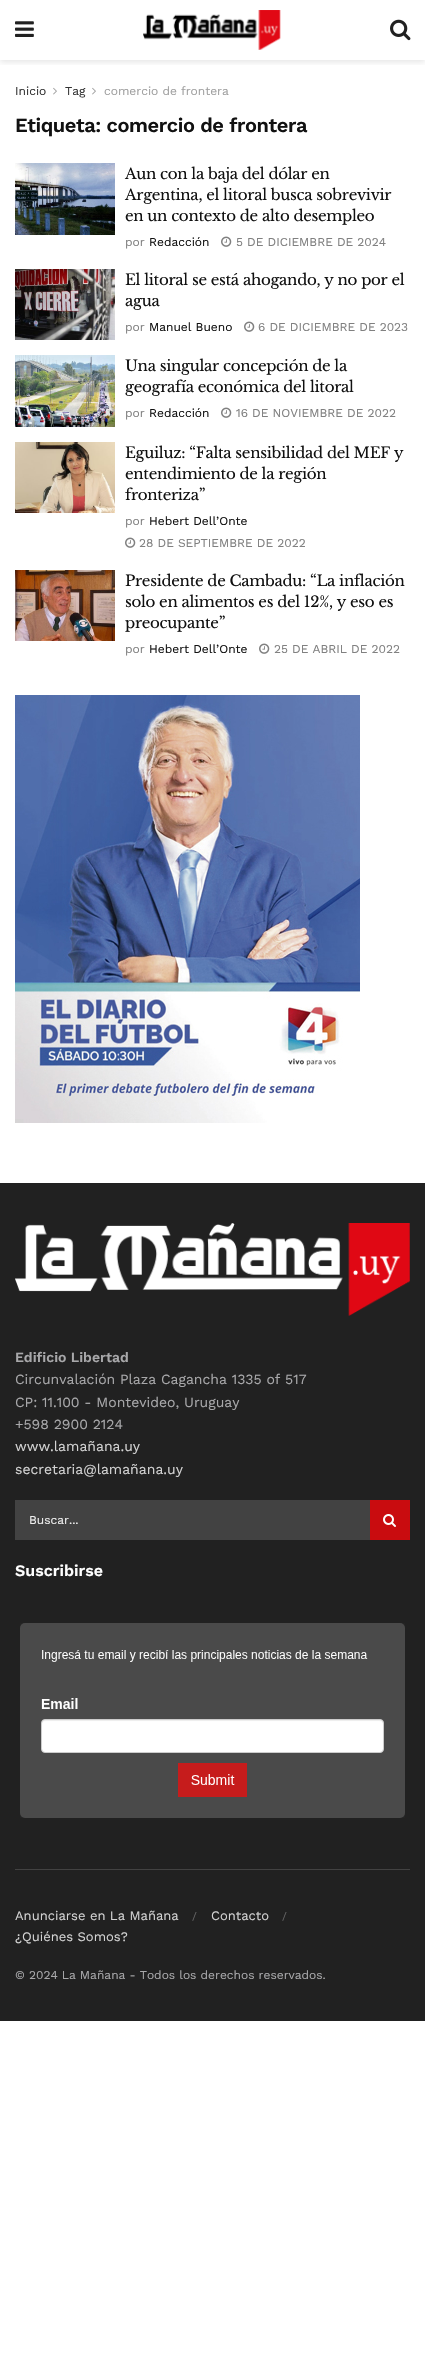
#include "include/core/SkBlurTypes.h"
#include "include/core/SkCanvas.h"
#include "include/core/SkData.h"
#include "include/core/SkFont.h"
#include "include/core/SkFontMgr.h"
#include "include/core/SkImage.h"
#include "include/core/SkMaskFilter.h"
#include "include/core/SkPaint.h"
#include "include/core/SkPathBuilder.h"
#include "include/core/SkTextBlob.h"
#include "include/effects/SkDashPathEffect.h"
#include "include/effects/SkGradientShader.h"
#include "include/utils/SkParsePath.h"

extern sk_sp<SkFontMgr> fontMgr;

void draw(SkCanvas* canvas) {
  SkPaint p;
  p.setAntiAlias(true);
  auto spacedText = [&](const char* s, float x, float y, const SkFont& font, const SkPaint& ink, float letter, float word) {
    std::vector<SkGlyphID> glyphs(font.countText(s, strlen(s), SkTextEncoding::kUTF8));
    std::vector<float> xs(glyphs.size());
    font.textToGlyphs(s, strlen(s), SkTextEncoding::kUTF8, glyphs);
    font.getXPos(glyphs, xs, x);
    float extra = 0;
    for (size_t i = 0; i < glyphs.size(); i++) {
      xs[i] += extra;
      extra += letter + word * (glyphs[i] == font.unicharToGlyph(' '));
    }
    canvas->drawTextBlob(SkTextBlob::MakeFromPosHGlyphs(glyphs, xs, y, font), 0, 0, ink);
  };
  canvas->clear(SK_ColorWHITE);
  canvas->save();
  canvas->clipRect(SkRect::MakeLTRB(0, 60, 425, 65));
  p.setColor(SkColorSetARGB(26, 0, 0, 0));
  p.setMaskFilter(SkMaskFilter::MakeBlur(kNormal_SkBlurStyle, 3));
  canvas->drawRect(SkRect::MakeLTRB(0, 2, 425, 62), p);
  p.setMaskFilter(nullptr);
  canvas->restore();
  canvas->drawImageRect(SkImages::DeferredFromEncodedData(SkData::MakeFromFileName("images/1.png")), SkRect::MakeLTRB(15, 21, 34, 37), SkSamplingOptions());
  canvas->drawImageRect(SkImages::DeferredFromEncodedData(SkData::MakeFromFileName("images/2.png")), SkRect::MakeLTRB(143, 10, 281, 50), SkSamplingOptions());
  canvas->drawImageRect(SkImages::DeferredFromEncodedData(SkData::MakeFromFileName("images/3.png")), SkRect::MakeLTRB(390, 19, 411, 41), SkSamplingOptions());
  canvas->drawImageRect(SkImages::DeferredFromEncodedData(SkData::MakeFromFileName("images/4.png")), SkRect::MakeLTRB(53, 87, 57, 95), SkSamplingOptions());
  canvas->drawImageRect(SkImages::DeferredFromEncodedData(SkData::MakeFromFileName("images/4.png")), SkRect::MakeLTRB(92, 87, 96, 95), SkSamplingOptions());
  canvas->drawImageRect(SkImages::DeferredFromEncodedData(SkData::MakeFromFileName("images/5.png")), SkRect::MakeLTRB(15, 163, 115, 235), SkSamplingOptions());
  canvas->drawImageRect(SkImages::DeferredFromEncodedData(SkData::MakeFromFileName("images/6.png")), SkRect::MakeLTRB(221, 236, 232, 247), SkSamplingOptions());
  canvas->drawImageRect(SkImages::DeferredFromEncodedData(SkData::MakeFromFileName("images/7.png")), SkRect::MakeLTRB(15, 269, 115, 340), SkSamplingOptions());
  canvas->drawImageRect(SkImages::DeferredFromEncodedData(SkData::MakeFromFileName("images/6.png")), SkRect::MakeLTRB(244, 321, 255, 332), SkSamplingOptions());
  canvas->drawImageRect(SkImages::DeferredFromEncodedData(SkData::MakeFromFileName("images/8.png")), SkRect::MakeLTRB(15, 355, 115, 427), SkSamplingOptions());
  canvas->drawImageRect(SkImages::DeferredFromEncodedData(SkData::MakeFromFileName("images/6.png")), SkRect::MakeLTRB(221, 407, 232, 418), SkSamplingOptions());
  canvas->drawImageRect(SkImages::DeferredFromEncodedData(SkData::MakeFromFileName("images/9.png")), SkRect::MakeLTRB(15, 442, 115, 513), SkSamplingOptions());
  canvas->drawImageRect(SkImages::DeferredFromEncodedData(SkData::MakeFromFileName("images/6.png")), SkRect::MakeLTRB(125, 537, 136, 548), SkSamplingOptions());
  canvas->drawImageRect(SkImages::DeferredFromEncodedData(SkData::MakeFromFileName("images/10.png")), SkRect::MakeLTRB(15, 570, 115, 641), SkSamplingOptions());
  canvas->drawImageRect(SkImages::DeferredFromEncodedData(SkData::MakeFromFileName("images/6.png")), SkRect::MakeLTRB(259, 643, 270, 654), SkSamplingOptions());
  canvas->drawImageRect(SkImages::DeferredFromEncodedData(SkData::MakeFromFileName("images/11.png")), SkRect::MakeLTRB(15, 695, 360, 1123), SkSamplingOptions());
  p.setColor(SkColorSetRGB(33, 33, 33));
  canvas->drawRect(SkRect::MakeLTRB(0, 1183, 425, 2021), p);
  canvas->drawImageRect(SkImages::DeferredFromEncodedData(SkData::MakeFromFileName("images/12.png")), SkRect::MakeLTRB(15, 1223, 410, 1316), SkSamplingOptions());
  p.setColor(SkColorSetRGB(66, 66, 66));
  canvas->drawRect(SkRect::MakeLTRB(15, 1500, 370, 1540), p);
  p.setColor(SkColorSetRGB(201, 12, 15));
  canvas->drawRect(SkRect::MakeLTRB(370, 1500, 410, 1540), p);
  canvas->drawImageRect(SkImages::DeferredFromEncodedData(SkData::MakeFromFileName("images/13.png")), SkRect::MakeLTRB(383, 1514, 396, 1527), SkSamplingOptions());
  canvas->drawImageRect(SkImages::DeferredFromEncodedData(SkData::MakeFromFileName("images/14.png")), SkRect::MakeLTRB(20, 1623, 405, 1818), SkSamplingOptions());
  p.setColor(SkColorSetRGB(66, 66, 66));
  canvas->drawRect(SkRect::MakeLTRB(15, 1869, 410, 1870), p);
  SkFont font1(fontMgr->matchFamilyStyle("Work Sans", SkFontStyle::Normal()), 12);
  font1.setSubpixel(true);
  p.setColor(SkColorSetRGB(51, 51, 51));
  canvas->drawString("Inicio", 15, 95, font1, p);
  canvas->drawString("Tag", 65, 95, font1, p);
  p.setColor(SkColorSetRGB(160, 160, 160));
  canvas->drawString("comercio de frontera", 104, 95, font1, p);
  SkFont font2(fontMgr->matchFamilyStyle("Work Sans", SkFontStyle(600, SkFontStyle::kNormal_Width, SkFontStyle::kUpright_Slant)), 20);
  font2.setSubpixel(true);
  p.setColor(SkColorSetRGB(17, 17, 17));
  spacedText("Etiqueta: comercio de frontera", 15, 132, font2, p, -0.4f, 0);
  SkFont font3(fontMgr->matchFamilyStyle("Libre Baskerville", SkFontStyle::Normal()), 15);
  font3.setSubpixel(true);
  spacedText("Aun con la baja del dólar en", 125, 179, font3, p, -0.3f, 0);
  spacedText("Argentina, el litoral busca sobrevivir", 125, 200, font3, p, -0.3f, 0);
  spacedText("en un contexto de alto desempleo", 125, 221, font3, p, -0.3f, 0);
  p.setColor(SkColorSetRGB(128, 128, 128));
  canvas->drawString("por", 125, 246, font1, p);
  p.setColor(SkColorSetRGB(17, 17, 17));
  canvas->drawString("Redacción", 149, 246, font1, p);
  p.setColor(SkColorSetRGB(128, 128, 128));
  canvas->drawString("5 DE DICIEMBRE DE 2024", 236, 246, font1, p);
  p.setColor(SkColorSetRGB(17, 17, 17));
  spacedText("El litoral se está ahogando, y no por el", 125, 285, font3, p, -0.3f, 0);
  spacedText("agua", 125, 306, font3, p, -0.3f, 0);
  p.setColor(SkColorSetRGB(128, 128, 128));
  canvas->drawString("por", 125, 331, font1, p);
  p.setColor(SkColorSetRGB(17, 17, 17));
  canvas->drawString("Manuel Bueno", 149, 331, font1, p);
  p.setColor(SkColorSetRGB(128, 128, 128));
  canvas->drawString("6 DE DICIEMBRE DE 2023", 258, 331, font1, p);
  p.setColor(SkColorSetRGB(17, 17, 17));
  spacedText("Una singular concepción de la", 125, 371, font3, p, -0.3f, 0);
  spacedText("geografía económica del litoral", 125, 392, font3, p, -0.3f, 0);
  p.setColor(SkColorSetRGB(128, 128, 128));
  canvas->drawString("por", 125, 417, font1, p);
  p.setColor(SkColorSetRGB(17, 17, 17));
  canvas->drawString("Redacción", 149, 417, font1, p);
  p.setColor(SkColorSetRGB(128, 128, 128));
  canvas->drawString("16 DE NOVIEMBRE DE 2022", 236, 417, font1, p);
  p.setColor(SkColorSetRGB(17, 17, 17));
  spacedText("Eguiluz: “Falta sensibilidad del MEF y", 125, 458, font3, p, -0.3f, 0);
  spacedText("entendimiento de la región", 125, 479, font3, p, -0.3f, 0);
  spacedText("fronteriza”", 125, 500, font3, p, -0.3f, 0);
  p.setColor(SkColorSetRGB(128, 128, 128));
  canvas->drawString("por", 125, 525, font1, p);
  p.setColor(SkColorSetRGB(17, 17, 17));
  canvas->drawString("Hebert Dell’Onte", 149, 525, font1, p);
  p.setColor(SkColorSetRGB(128, 128, 128));
  canvas->drawString("28 DE SEPTIEMBRE DE 2022", 139, 547, font1, p);
  p.setColor(SkColorSetRGB(17, 17, 17));
  spacedText("Presidente de Cambadu: “La inflación", 125, 586, font3, p, -0.3f, 0);
  spacedText("solo en alimentos es del 12%, y eso es", 125, 607, font3, p, -0.3f, 0);
  spacedText("preocupante”", 125, 628, font3, p, -0.3f, 0);
  p.setColor(SkColorSetRGB(128, 128, 128));
  canvas->drawString("por", 125, 653, font1, p);
  p.setColor(SkColorSetRGB(17, 17, 17));
  canvas->drawString("Hebert Dell’Onte", 149, 653, font1, p);
  p.setColor(SkColorSetRGB(128, 128, 128));
  canvas->drawString("25 DE ABRIL DE 2022", 274, 653, font1, p);
  SkFont font4(fontMgr->matchFamilyStyle("Work Sans", SkFontStyle(600, SkFontStyle::kNormal_Width, SkFontStyle::kUpright_Slant)), 14);
  font4.setSubpixel(true);
  p.setColor(SkColorSetRGB(168, 168, 170));
  canvas->drawString("Edificio Libertad", 15, 1362, font4, p);
  SkFont font5(fontMgr->matchFamilyStyle("Work Sans", SkFontStyle::Normal()), 14);
  font5.setSubpixel(true);
  canvas->drawString("Circunvalación Plaza Cagancha 1335 of 517", 15, 1384, font5, p);
  canvas->drawString("CP: 11.100 - Montevideo, Uruguay", 15, 1407, font5, p);
  canvas->drawString("+598 2900 2124", 15, 1429, font5, p);
  p.setColor(SkColorSetRGB(211, 211, 211));
  canvas->drawString("www.lamañana.uy", 15, 1451, font5, p);
  canvas->drawString("secretaria@lamañana.uy", 15, 1474, font5, p);
  p.setColor(SkColorSetRGB(238, 238, 238));
  canvas->drawString("Buscar...", 29, 1524, font1, p);
  SkFont font6(fontMgr->matchFamilyStyle("Work Sans", SkFontStyle(600, SkFontStyle::kNormal_Width, SkFontStyle::kUpright_Slant)), 16);
  font6.setSubpixel(true);
  p.setColor(SK_ColorWHITE);
  canvas->drawString("Suscribirse", 15, 1576, font6, p);
  SkFont font7(fontMgr->matchFamilyStyle("Work Sans", SkFontStyle::Normal()), 13);
  font7.setSubpixel(true);
  p.setColor(SkColorSetRGB(211, 211, 211));
  canvas->drawString("Anunciarse en La Mañana", 15, 1920, font7, p);
  SkFont font8(fontMgr->matchFamilyStyle("Work Sans", SkFontStyle::Normal()), 11);
  font8.setSubpixel(true);
  p.setColor(SkColorSetRGB(100, 100, 100));
  canvas->drawString("/", 192, 1920, font8, p);
  p.setColor(SkColorSetRGB(211, 211, 211));
  canvas->drawString("Contacto", 211, 1920, font7, p);
  p.setColor(SkColorSetRGB(100, 100, 100));
  canvas->drawString("/", 282, 1920, font8, p);
  p.setColor(SkColorSetRGB(211, 211, 211));
  canvas->drawString("¿Quiénes Somos?", 15, 1941, font7, p);
  p.setColor(SkColorSetRGB(168, 168, 170));
  canvas->drawString("© 2024 La Mañana - Todos los derechos reservados.", 15, 1979, font1, p);
}
